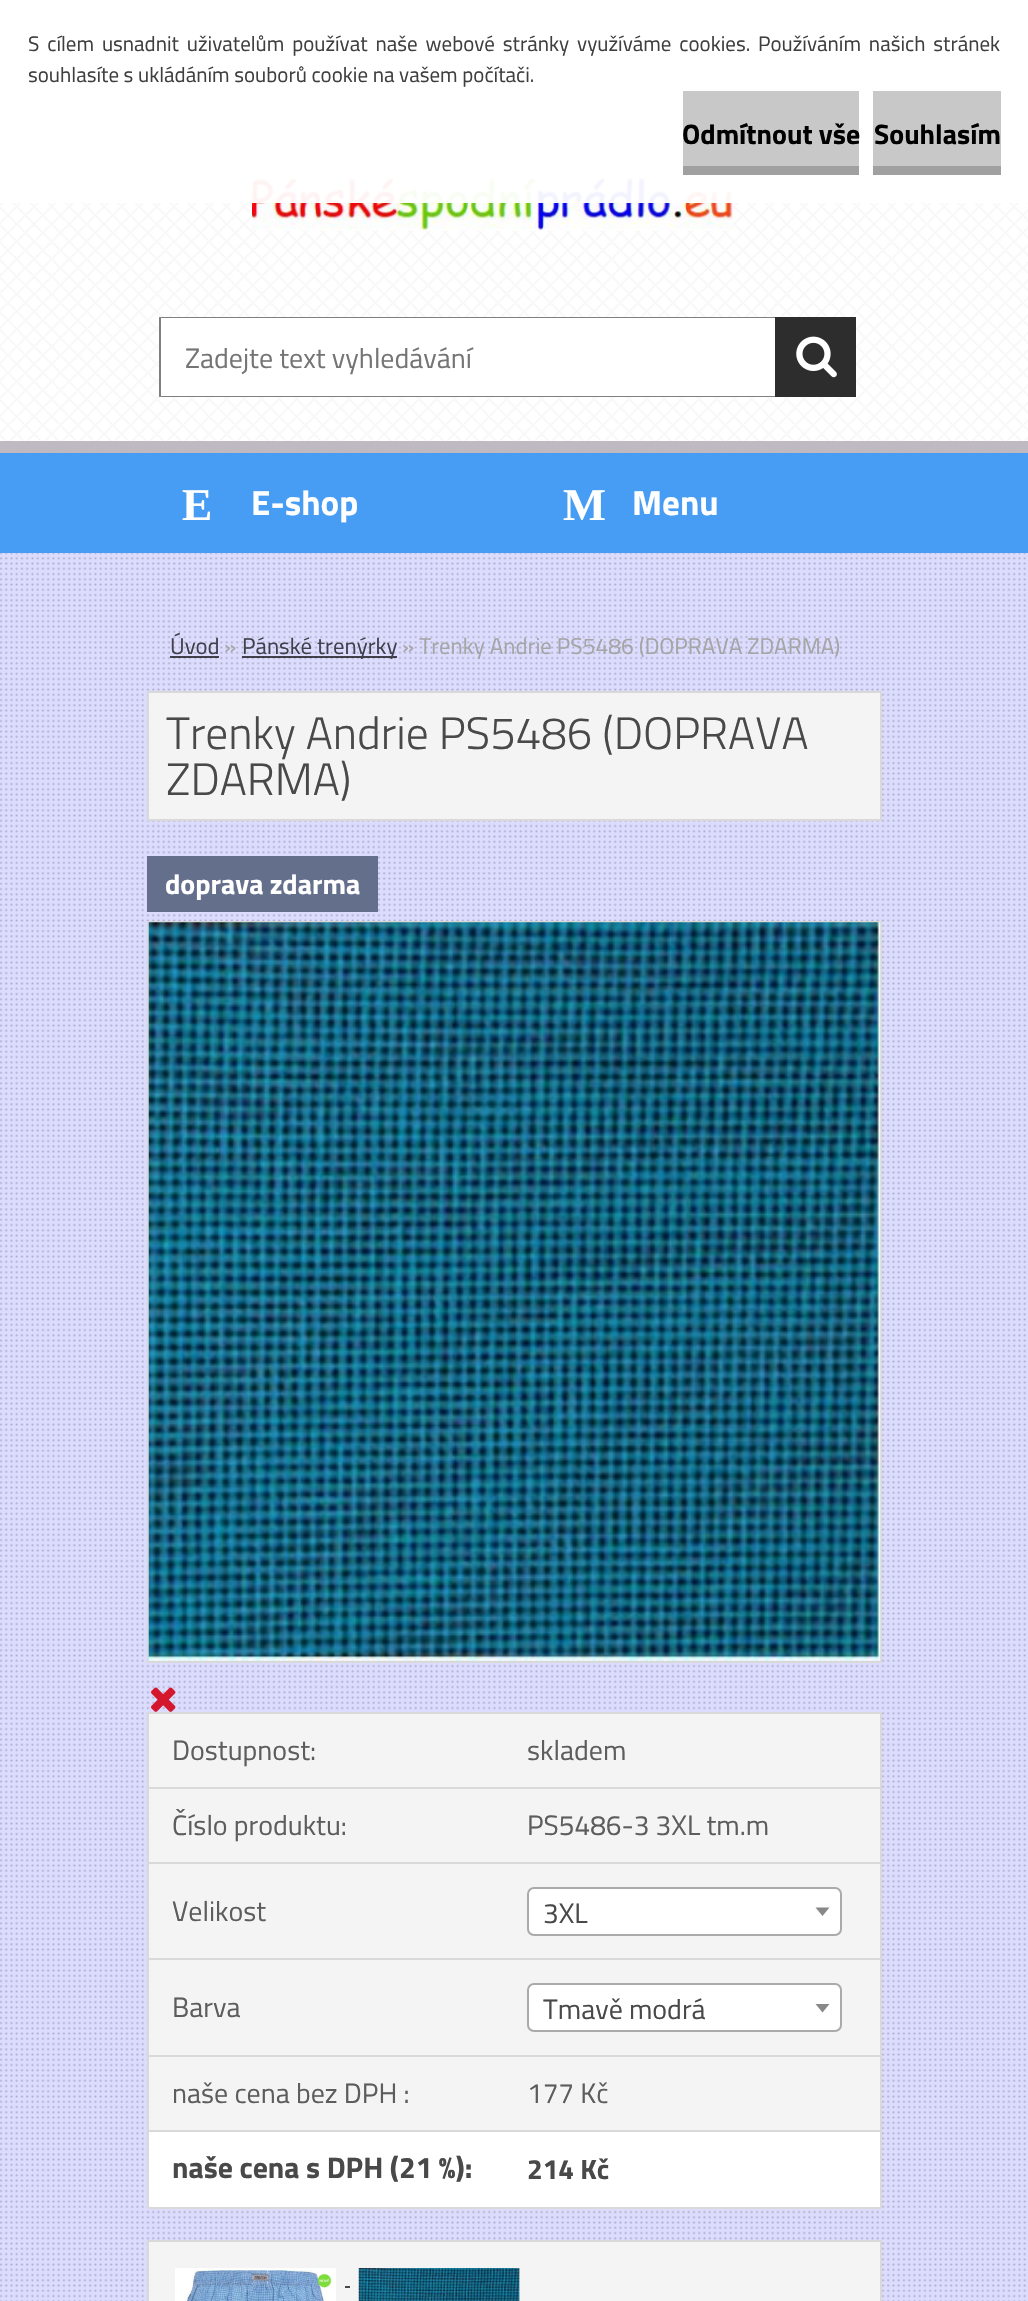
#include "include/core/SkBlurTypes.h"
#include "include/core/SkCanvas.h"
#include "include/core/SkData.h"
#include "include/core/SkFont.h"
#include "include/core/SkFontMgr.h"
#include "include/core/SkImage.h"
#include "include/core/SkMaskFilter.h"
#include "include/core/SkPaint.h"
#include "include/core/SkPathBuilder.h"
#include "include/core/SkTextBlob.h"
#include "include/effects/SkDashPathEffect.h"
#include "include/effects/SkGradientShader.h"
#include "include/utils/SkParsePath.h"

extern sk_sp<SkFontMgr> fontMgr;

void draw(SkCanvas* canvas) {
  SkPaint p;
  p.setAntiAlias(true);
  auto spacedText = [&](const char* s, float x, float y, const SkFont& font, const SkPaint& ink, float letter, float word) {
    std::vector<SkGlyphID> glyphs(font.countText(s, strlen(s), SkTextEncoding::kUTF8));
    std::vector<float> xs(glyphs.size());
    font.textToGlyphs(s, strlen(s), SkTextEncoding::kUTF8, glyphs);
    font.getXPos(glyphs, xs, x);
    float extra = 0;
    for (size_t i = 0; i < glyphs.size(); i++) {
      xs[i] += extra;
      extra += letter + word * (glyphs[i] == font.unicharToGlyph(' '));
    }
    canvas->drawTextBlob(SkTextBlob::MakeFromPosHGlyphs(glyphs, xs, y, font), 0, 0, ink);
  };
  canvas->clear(SkColorSetRGB(220, 220, 254));
  p.setColor(SK_ColorWHITE);
  canvas->drawRect(SkRect::MakeLTRB(0, 0, 1028, 441), p);
  p.setColor(SkColorSetRGB(71, 156, 243));
  canvas->drawRect(SkRect::MakeLTRB(0, 453, 1028, 553), p);
  canvas->drawImageRect(SkImages::DeferredFromEncodedData(SkData::MakeFromFileName("images/1.png")), SkRect::MakeLTRB(0, 0, 1028, 454), SkSamplingOptions());
  canvas->drawImageRect(SkImages::DeferredFromEncodedData(SkData::MakeFromFileName("images/2.png")), SkRect::MakeLTRB(252, 176, 734, 231), SkSamplingOptions());
  p.setColor(SkColorSetARGB(242, 255, 255, 255));
  canvas->drawRect(SkRect::MakeLTRB(0, 0, 1028, 203), p);
  p.setColor(SkColorSetRGB(200, 200, 200));
  canvas->drawRect(SkRect::MakeLTRB(683, 91, 859, 166), p);
  p.setColor(SkColorSetRGB(160, 160, 160));
  canvas->drawRect(SkRect::MakeLTRB(683, 166, 859, 175), p);
  p.setColor(SkColorSetRGB(200, 200, 200));
  canvas->drawRect(SkRect::MakeLTRB(873, 91, 1001, 166), p);
  p.setColor(SkColorSetRGB(160, 160, 160));
  canvas->drawRect(SkRect::MakeLTRB(873, 166, 1001, 175), p);
  p.setColor(SkColorSetRGB(191, 186, 193));
  canvas->drawRect(SkRect::MakeLTRB(0, 441, 1028, 453), p);
  p.setColor(SK_ColorWHITE);
  canvas->drawRect(SkRect::MakeLTRB(159, 317, 775, 397), p);
  p.setColor(SkColorSetRGB(128, 128, 128));
  canvas->drawPath(SkPathBuilder().moveTo(159, 317).lineTo(775, 317).lineTo(775, 318).lineTo(161, 318).close().detach(), p);
  canvas->drawPath(SkPathBuilder().moveTo(775, 397).lineTo(159, 397).lineTo(161, 396).lineTo(775, 396).close().detach(), p);
  p.setColor(SkColorSetARGB(128, 0, 0, 0));
  canvas->drawPath(SkPathBuilder().moveTo(159, 397).lineTo(159, 317).lineTo(161, 318).lineTo(161, 396).close().detach(), p);
  p.setColor(SkColorSetRGB(45, 45, 45));
  canvas->drawRect(SkRect::MakeLTRB(775, 317, 856, 397), p);
  canvas->drawImageRect(SkImages::DeferredFromEncodedData(SkData::MakeFromFileName("images/3.png")), SkRect::MakeLTRB(796, 336, 837, 378), SkSamplingOptions());
  canvas->drawImageRect(SkImages::DeferredFromEncodedData(SkData::MakeFromFileName("images/4.png")), SkRect::MakeLTRB(0, 553, 1026, 2301), SkSamplingOptions());
  p.setColor(SkColorSetARGB(179, 0, 0, 0));
  canvas->drawRect(SkRect::MakeLTRB(170, 656, 219, 658), p);
  canvas->drawRect(SkRect::MakeLTRB(242, 656, 397, 658), p);
  p.setColor(SkColorSetRGB(244, 244, 244));
  canvas->drawRect(SkRect::MakeLTRB(148, 692, 881, 820), p);
  p.setStyle(SkPaint::kStroke_Style);
  p.setStrokeWidth(2);
  p.setColor(SkColorSetRGB(217, 217, 217));
  canvas->drawRect(SkRect::MakeLTRB(148, 692, 881, 820), p);
  p.setStyle(SkPaint::kFill_Style);
  p.setColor(SkColorSetRGB(100, 111, 139));
  canvas->drawRect(SkRect::MakeLTRB(147, 856, 378, 912), p);
  p.setStyle(SkPaint::kStroke_Style);
  p.setColor(SkColorSetRGB(217, 217, 217));
  canvas->drawRect(SkRect::MakeLTRB(148, 922, 881, 1662), p);
  canvas->drawImageRect(SkImages::DeferredFromEncodedData(SkData::MakeFromFileName("images/5.png")), SkRect::MakeLTRB(148, 922, 881, 1661), SkSamplingOptions());
  canvas->drawImageRect(SkImages::DeferredFromEncodedData(SkData::MakeFromFileName("images/6.png")), SkRect::MakeLTRB(151, 1687, 176, 1712), SkSamplingOptions());
  p.setStyle(SkPaint::kFill_Style);
  p.setColor(SK_ColorWHITE);
  canvas->drawRect(SkRect::MakeLTRB(149, 2132, 880, 2207), p);
  p.setColor(SkColorSetRGB(217, 217, 217));
  canvas->drawRect(SkRect::MakeLTRB(147, 1712, 882, 1714), p);
  canvas->drawRect(SkRect::MakeLTRB(880, 1712, 882, 2209), p);
  canvas->drawRect(SkRect::MakeLTRB(147, 2207, 882, 2209), p);
  canvas->drawRect(SkRect::MakeLTRB(147, 1712, 149, 2209), p);
  p.setColor(SkColorSetRGB(244, 244, 244));
  canvas->drawRect(SkRect::MakeLTRB(149, 1714, 880, 1787), p);
  canvas->drawRect(SkRect::MakeLTRB(149, 1789, 880, 1862), p);
  p.setColor(SkColorSetRGB(217, 217, 217));
  canvas->drawRect(SkRect::MakeLTRB(147, 1787, 882, 1789), p);
  p.setColor(SkColorSetRGB(244, 244, 244));
  canvas->drawRect(SkRect::MakeLTRB(149, 1864, 880, 1958), p);
  p.setColor(SkColorSetRGB(217, 217, 217));
  canvas->drawRect(SkRect::MakeLTRB(147, 1862, 882, 1864), p);
  p.setColor(SK_ColorWHITE);
  canvas->drawRoundRect(SkRect::MakeLTRB(528, 1888, 841, 1935), 6, 6, p);
  p.setStyle(SkPaint::kStroke_Style);
  p.setColor(SkColorSetRGB(170, 170, 170));
  canvas->drawRoundRect(SkRect::MakeLTRB(528, 1888, 841, 1935), 6, 6, p);
  p.setStyle(SkPaint::kFill_Style);
  p.setColor(SkColorSetRGB(136, 136, 136));
  canvas->drawPath(SkPathBuilder().moveTo(815.5f, 1907.5f).lineTo(829.5f, 1907.5f).lineTo(822.5f, 1916).close().detach(), p);
  p.setColor(SkColorSetRGB(244, 244, 244));
  canvas->drawRect(SkRect::MakeLTRB(149, 1960, 880, 2055), p);
  p.setColor(SkColorSetRGB(217, 217, 217));
  canvas->drawRect(SkRect::MakeLTRB(147, 1958, 882, 1960), p);
  p.setColor(SK_ColorWHITE);
  canvas->drawRoundRect(SkRect::MakeLTRB(528, 1984, 841, 2031), 6, 6, p);
  p.setStyle(SkPaint::kStroke_Style);
  p.setColor(SkColorSetRGB(170, 170, 170));
  canvas->drawRoundRect(SkRect::MakeLTRB(528, 1984, 841, 2031), 6, 6, p);
  p.setStyle(SkPaint::kFill_Style);
  p.setColor(SkColorSetRGB(136, 136, 136));
  canvas->drawPath(SkPathBuilder().moveTo(815.5f, 2004).lineTo(829.5f, 2004).lineTo(822.5f, 2012.5f).close().detach(), p);
  p.setColor(SkColorSetRGB(244, 244, 244));
  canvas->drawRect(SkRect::MakeLTRB(149, 2057, 880, 2130), p);
  p.setColor(SkColorSetRGB(217, 217, 217));
  canvas->drawRect(SkRect::MakeLTRB(147, 2055, 882, 2057), p);
  canvas->drawRect(SkRect::MakeLTRB(147, 2130, 882, 2132), p);
  p.setColor(SkColorSetRGB(244, 244, 244));
  canvas->drawRect(SkRect::MakeLTRB(148, 2241, 881, 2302), p);
  p.setStyle(SkPaint::kStroke_Style);
  p.setColor(SkColorSetRGB(217, 217, 217));
  canvas->drawRect(SkRect::MakeLTRB(148, 2241, 881, 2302), p);
  canvas->drawImageRect(SkImages::DeferredFromEncodedData(SkData::MakeFromFileName("images/7.png")), SkRect::MakeLTRB(175, 2268, 336, 2301), SkSamplingOptions());
  p.setStyle(SkPaint::kFill_Style);
  p.setColor(SkColorSetRGB(73, 73, 73));
  canvas->drawRect(SkRect::MakeLTRB(345, 2286, 350, 2288), p);
  canvas->drawImageRect(SkImages::DeferredFromEncodedData(SkData::MakeFromFileName("images/8.png")), SkRect::MakeLTRB(358, 2268, 520, 2301), SkSamplingOptions());
  SkFont font1(fontMgr->matchFamilyStyle("Titillium Web", SkFontStyle::Normal()), 21);
  font1.setSubpixel(true);
  p.setColor(SkColorSetRGB(63, 63, 63));
  spacedText("S cílem usnadnit uživatelům používat naše webové stránky využíváme cookies. Používáním našich stránek", 28, 51, font1, p, 0, 3.25f);
  canvas->drawString("souhlasíte s ukládáním souborů cookie na vašem počítači.", 28, 82, font1, p);
  SkFont font2(fontMgr->matchFamilyStyle("Titillium Web", SkFontStyle::Bold()), 28);
  font2.setSubpixel(true);
  p.setColor(SK_ColorBLACK);
  canvas->drawString("Odmítnout vše", 682, 144, font2, p);
  canvas->drawString("Souhlasím", 874, 144, font2, p);
  SkFont font3(fontMgr->matchFamilyStyle("Titillium Web", SkFontStyle::Normal()), 28);
  font3.setSubpixel(true);
  p.setColor(SkColorSetRGB(117, 117, 117));
  canvas->drawString("Zadejte text vyhledávání", 185, 368, font3, p);
  SkFont font4(fontMgr->matchFamilyStyle("Liberation Serif", SkFontStyle::Bold()), 45.5f);
  font4.setSubpixel(true);
  p.setColor(SK_ColorWHITE);
  canvas->drawString("E", 182, 520, font4, p);
  SkFont font5(fontMgr->matchFamilyStyle("Titillium Web", SkFontStyle::Bold()), 35);
  font5.setSubpixel(true);
  canvas->drawString("E-shop", 251, 515, font5, p);
  canvas->drawString("M", 563, 520, font4, p);
  canvas->drawString("Menu", 632, 515, font5, p);
  SkFont font6(fontMgr->matchFamilyStyle("Titillium Web", SkFontStyle::Normal()), 22.75f);
  font6.setSubpixel(true);
  p.setColor(SkColorSetRGB(64, 64, 74));
  canvas->drawString("Úvod", 170, 654, font6, p);
  p.setColor(SkColorSetRGB(165, 165, 165));
  canvas->drawString("»", 224, 654, font6, p);
  p.setColor(SkColorSetRGB(64, 64, 74));
  canvas->drawString("Pánské trenýrky", 242, 654, font6, p);
  p.setColor(SkColorSetRGB(165, 165, 165));
  canvas->drawString("» Trenky Andrie PS5486 (DOPRAVA ZDARMA)", 402, 654, font6, p);
  SkFont font7(fontMgr->matchFamilyStyle("Titillium Web", SkFontStyle(300, SkFontStyle::kNormal_Width, SkFontStyle::kUpright_Slant)), 45.5f);
  font7.setSubpixel(true);
  p.setColor(SkColorSetRGB(73, 73, 73));
  canvas->drawString("Trenky Andrie PS5486 (DOPRAVA", 166, 749, font7, p);
  canvas->drawString("ZDARMA)", 166, 795, font7, p);
  p.setColor(SK_ColorWHITE);
  canvas->drawString("doprava zdarma", 165, 894, font2, p);
  p.setColor(SkColorSetRGB(93, 93, 93));
  canvas->drawString("Dostupnost:", 172, 1760, font3, p);
  canvas->drawString("skladem", 527, 1760, font3, p);
  canvas->drawString("Číslo produktu:", 172, 1835, font3, p);
  canvas->drawString("PS5486-3 3XL tm.m", 527, 1835, font3, p);
  canvas->drawString("Velikost", 172, 1921, font3, p);
  p.setColor(SkColorSetRGB(73, 73, 73));
  canvas->drawString("3XL", 543, 1923, font3, p);
  p.setColor(SkColorSetRGB(93, 93, 93));
  canvas->drawString("Barva", 172, 2017, font3, p);
  p.setColor(SkColorSetRGB(73, 73, 73));
  canvas->drawString("Tmavě modrá", 543, 2019, font3, p);
  p.setColor(SkColorSetRGB(93, 93, 93));
  canvas->drawString("naše cena bez DPH :", 172, 2103, font3, p);
  canvas->drawString("177 Kč", 527, 2103, font3, p);
  SkFont font8(fontMgr->matchFamilyStyle("Titillium Web", SkFontStyle::Bold()), 29.75f);
  font8.setSubpixel(true);
  p.setColor(SkColorSetRGB(73, 73, 73));
  canvas->drawString("naše cena s DPH (21 %):", 172, 2178, font8, p);
  canvas->drawString("214 Kč", 527, 2179, font2, p);
}
